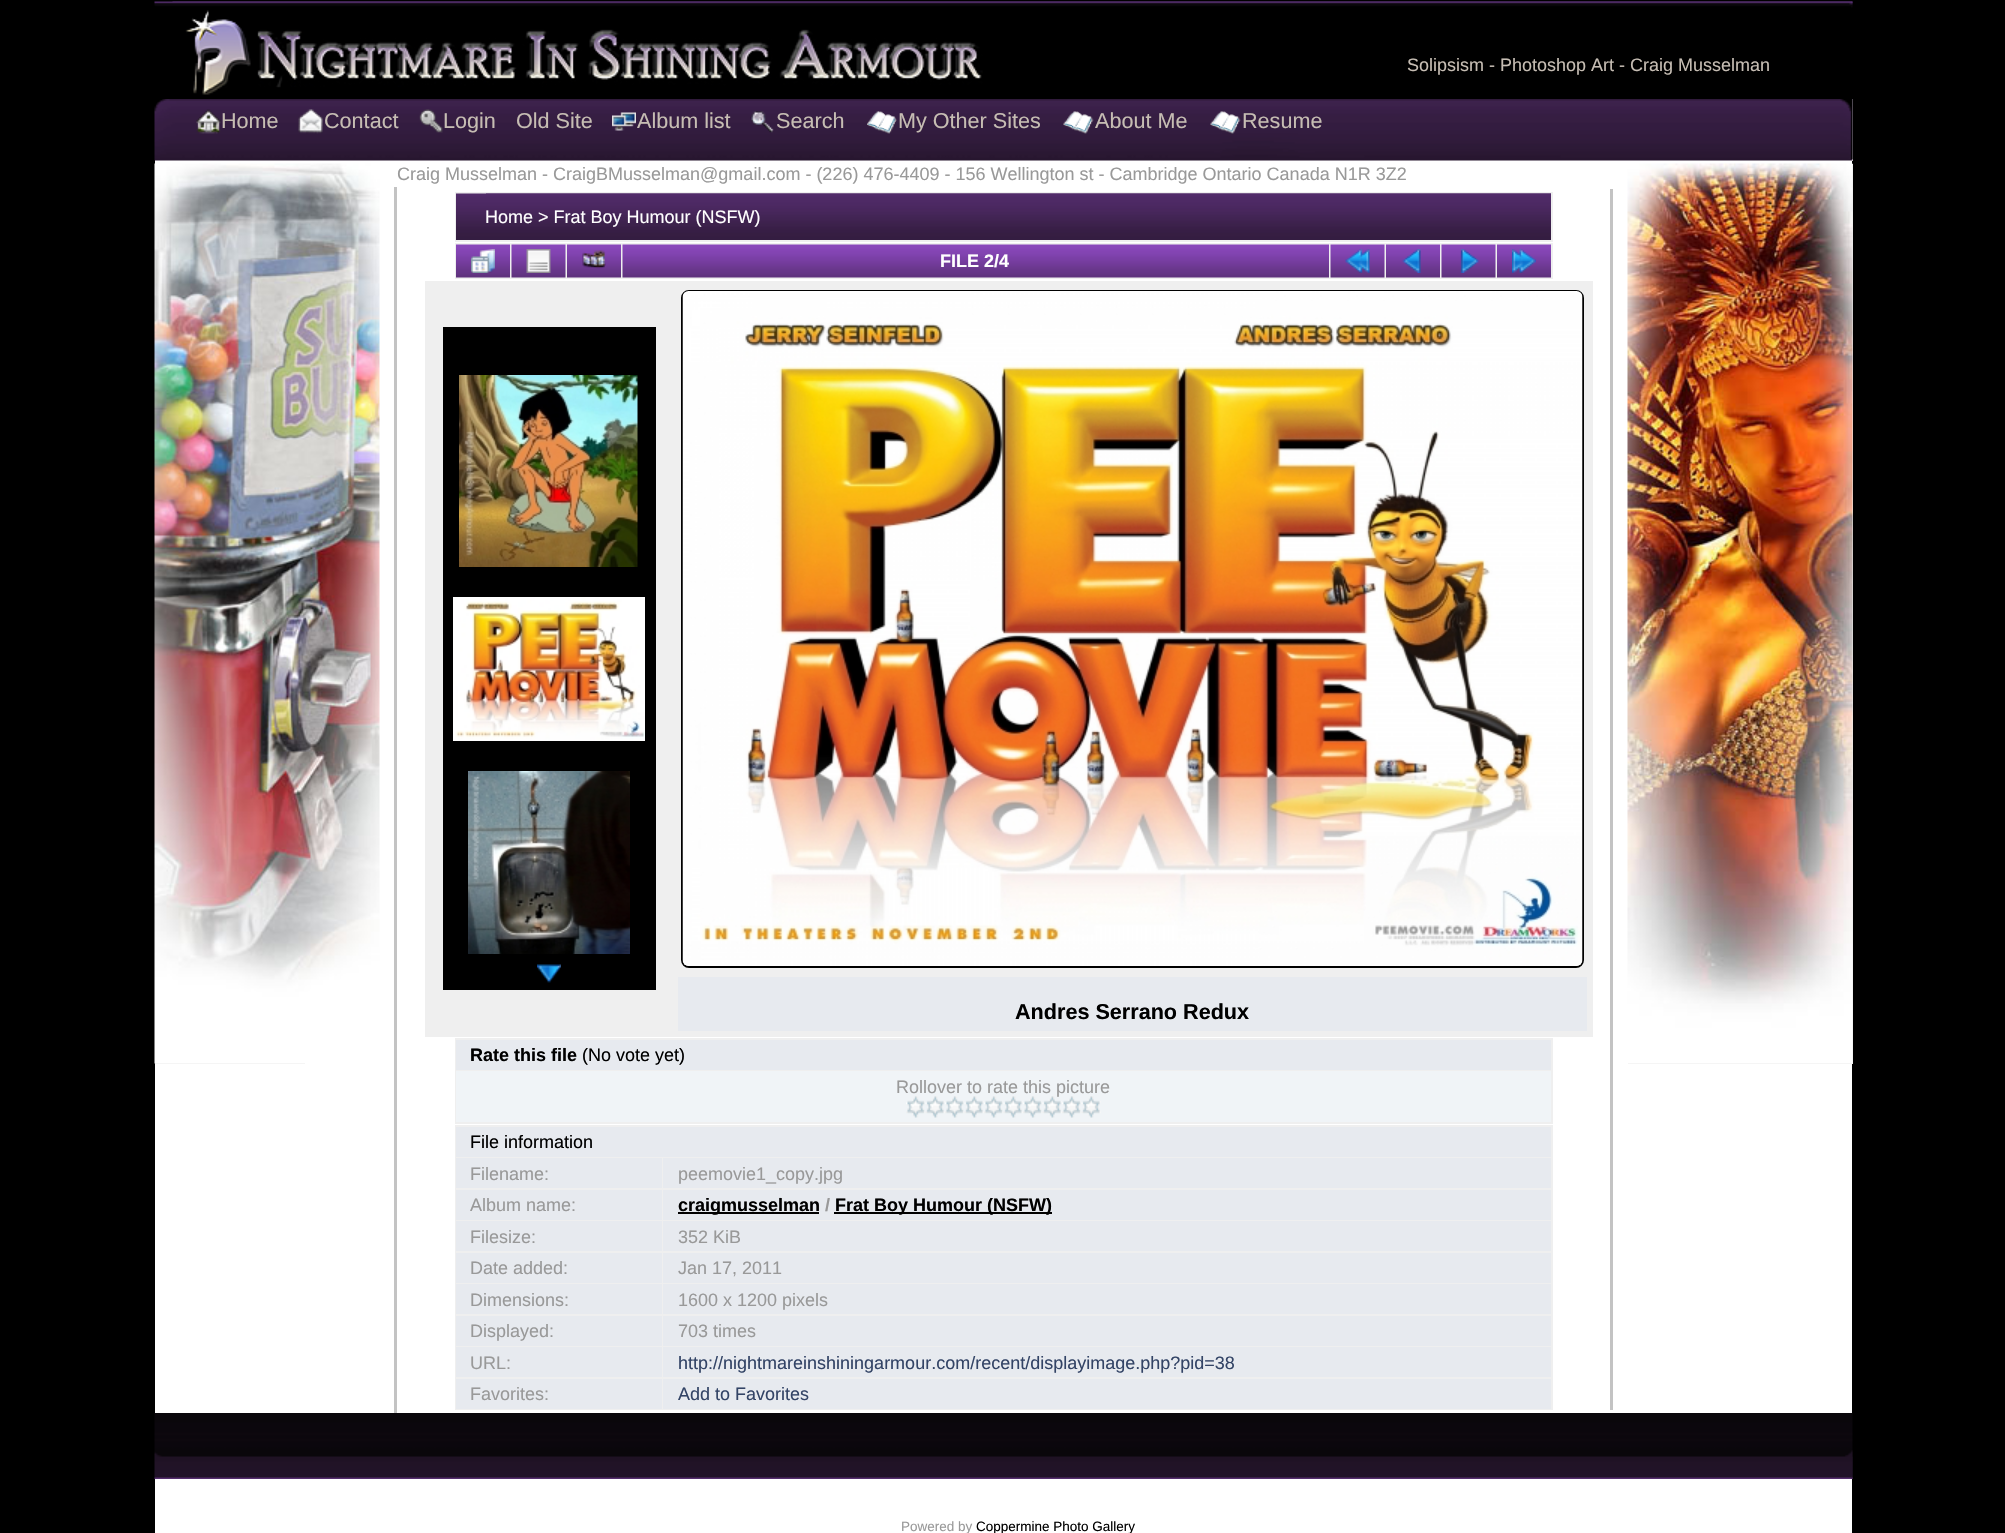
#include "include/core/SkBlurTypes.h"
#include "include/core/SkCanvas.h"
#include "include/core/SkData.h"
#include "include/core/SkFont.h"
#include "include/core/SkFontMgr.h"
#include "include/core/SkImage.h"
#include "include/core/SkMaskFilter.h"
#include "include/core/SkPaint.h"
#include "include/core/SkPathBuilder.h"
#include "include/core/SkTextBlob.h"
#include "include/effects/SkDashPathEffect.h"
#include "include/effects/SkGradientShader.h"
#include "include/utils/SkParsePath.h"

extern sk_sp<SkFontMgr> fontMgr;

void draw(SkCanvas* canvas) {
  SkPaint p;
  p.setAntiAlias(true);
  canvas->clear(SK_ColorBLACK);
  p.setColor(SK_ColorWHITE);
  canvas->drawRect(SkRect::MakeLTRB(155, 161, 1852, 1533), p);
  canvas->drawImageRect(SkImages::DeferredFromEncodedData(SkData::MakeFromFileName("images/1.png")), SkRect::MakeLTRB(154, 1, 1853, 99), SkSamplingOptions());
  canvas->drawImageRect(SkImages::DeferredFromEncodedData(SkData::MakeFromFileName("images/2.png")), SkRect::MakeLTRB(172, 1, 1853, 99), SkSamplingOptions());
  canvas->drawImageRect(SkImages::DeferredFromEncodedData(SkData::MakeFromFileName("images/3.png")), SkRect::MakeLTRB(185, 10, 983, 95), SkSamplingOptions());
  p.setColor(SkColorSetRGB(254, 254, 254));
  canvas->drawRect(SkRect::MakeLTRB(155, 99, 1853, 161), p);
  canvas->drawImageRect(SkImages::DeferredFromEncodedData(SkData::MakeFromFileName("images/4.png")), SkRect::MakeLTRB(154, 99, 1853, 161), SkSamplingOptions());
  canvas->drawImageRect(SkImages::DeferredFromEncodedData(SkData::MakeFromFileName("images/5.png")), SkRect::MakeLTRB(1840, 99, 1853, 159), SkSamplingOptions());
  canvas->drawImageRect(SkImages::DeferredFromEncodedData(SkData::MakeFromFileName("images/6.png")), SkRect::MakeLTRB(196, 109, 221, 134), SkSamplingOptions());
  canvas->drawImageRect(SkImages::DeferredFromEncodedData(SkData::MakeFromFileName("images/7.png")), SkRect::MakeLTRB(298, 109, 323, 134), SkSamplingOptions());
  canvas->drawImageRect(SkImages::DeferredFromEncodedData(SkData::MakeFromFileName("images/8.png")), SkRect::MakeLTRB(419, 109, 443, 133), SkSamplingOptions());
  canvas->drawImageRect(SkImages::DeferredFromEncodedData(SkData::MakeFromFileName("images/9.png")), SkRect::MakeLTRB(612, 112, 636, 131), SkSamplingOptions());
  canvas->drawImageRect(SkImages::DeferredFromEncodedData(SkData::MakeFromFileName("images/10.png")), SkRect::MakeLTRB(750, 111, 774, 133), SkSamplingOptions());
  canvas->drawImageRect(SkImages::DeferredFromEncodedData(SkData::MakeFromFileName("images/11.png")), SkRect::MakeLTRB(867, 111, 897, 134), SkSamplingOptions());
  canvas->drawImageRect(SkImages::DeferredFromEncodedData(SkData::MakeFromFileName("images/12.png")), SkRect::MakeLTRB(1063, 111, 1094, 134), SkSamplingOptions());
  canvas->drawImageRect(SkImages::DeferredFromEncodedData(SkData::MakeFromFileName("images/13.png")), SkRect::MakeLTRB(1210, 111, 1241, 134), SkSamplingOptions());
  p.setColor(SkColorSetRGB(235, 235, 235));
  canvas->drawRect(SkRect::MakeLTRB(155, 1063, 305, 1064), p);
  canvas->drawImageRect(SkImages::DeferredFromEncodedData(SkData::MakeFromFileName("images/14.png")), SkRect::MakeLTRB(154, 163, 380, 1064), SkSamplingOptions());
  p.setColor(SkColorSetRGB(195, 195, 195));
  canvas->drawRect(SkRect::MakeLTRB(394, 187, 397, 1413), p);
  canvas->drawRect(SkRect::MakeLTRB(1610, 189, 1613, 1410), p);
  p.setColor(SkColorSetRGB(239, 239, 239));
  canvas->drawRect(SkRect::MakeLTRB(455, 192, 1553, 242), p);
  canvas->drawImageRect(SkImages::DeferredFromEncodedData(SkData::MakeFromFileName("images/15.png")), SkRect::MakeLTRB(456, 193, 1551, 240), SkSamplingOptions());
  p.setColor(SkColorSetRGB(120, 91, 138));
  canvas->drawRect(SkRect::MakeLTRB(486, 193, 1551, 194), p);
  p.setColor(SkColorSetRGB(239, 239, 239));
  canvas->drawRect(SkRect::MakeLTRB(455, 243, 1553, 279), p);
  canvas->drawImageRect(SkImages::DeferredFromEncodedData(SkData::MakeFromFileName("images/16.png")), SkRect::MakeLTRB(456, 244, 510, 278), SkSamplingOptions());
  canvas->drawImageRect(SkImages::DeferredFromEncodedData(SkData::MakeFromFileName("images/17.png")), SkRect::MakeLTRB(471, 249, 495, 273), SkSamplingOptions());
  canvas->drawImageRect(SkImages::DeferredFromEncodedData(SkData::MakeFromFileName("images/18.png")), SkRect::MakeLTRB(511, 244, 566, 278), SkSamplingOptions());
  canvas->drawImageRect(SkImages::DeferredFromEncodedData(SkData::MakeFromFileName("images/19.png")), SkRect::MakeLTRB(526, 249, 551, 273), SkSamplingOptions());
  canvas->drawImageRect(SkImages::DeferredFromEncodedData(SkData::MakeFromFileName("images/16.png")), SkRect::MakeLTRB(567, 244, 621, 278), SkSamplingOptions());
  canvas->drawImageRect(SkImages::DeferredFromEncodedData(SkData::MakeFromFileName("images/20.png")), SkRect::MakeLTRB(582, 250, 606, 269), SkSamplingOptions());
  canvas->drawImageRect(SkImages::DeferredFromEncodedData(SkData::MakeFromFileName("images/21.png")), SkRect::MakeLTRB(622, 244, 1329, 278), SkSamplingOptions());
  canvas->drawImageRect(SkImages::DeferredFromEncodedData(SkData::MakeFromFileName("images/18.png")), SkRect::MakeLTRB(1330, 244, 1385, 278), SkSamplingOptions());
  canvas->drawImageRect(SkImages::DeferredFromEncodedData(SkData::MakeFromFileName("images/22.png")), SkRect::MakeLTRB(1345, 249, 1370, 273), SkSamplingOptions());
  canvas->drawImageRect(SkImages::DeferredFromEncodedData(SkData::MakeFromFileName("images/16.png")), SkRect::MakeLTRB(1386, 244, 1440, 278), SkSamplingOptions());
  canvas->drawImageRect(SkImages::DeferredFromEncodedData(SkData::MakeFromFileName("images/23.png")), SkRect::MakeLTRB(1402, 249, 1421, 273), SkSamplingOptions());
  canvas->drawImageRect(SkImages::DeferredFromEncodedData(SkData::MakeFromFileName("images/18.png")), SkRect::MakeLTRB(1441, 244, 1496, 278), SkSamplingOptions());
  canvas->drawImageRect(SkImages::DeferredFromEncodedData(SkData::MakeFromFileName("images/24.png")), SkRect::MakeLTRB(1460, 249, 1480, 273), SkSamplingOptions());
  canvas->drawImageRect(SkImages::DeferredFromEncodedData(SkData::MakeFromFileName("images/16.png")), SkRect::MakeLTRB(1497, 244, 1551, 278), SkSamplingOptions());
  canvas->drawImageRect(SkImages::DeferredFromEncodedData(SkData::MakeFromFileName("images/25.png")), SkRect::MakeLTRB(1512, 249, 1536, 273), SkSamplingOptions());
  canvas->drawRect(SkRect::MakeLTRB(425, 281, 1593, 1037), p);
  p.setColor(SK_ColorBLACK);
  canvas->drawRect(SkRect::MakeLTRB(443, 327, 656, 990), p);
  canvas->drawImageRect(SkImages::DeferredFromEncodedData(SkData::MakeFromFileName("images/26.png")), SkRect::MakeLTRB(459, 375, 638, 567), SkSamplingOptions());
  canvas->drawImageRect(SkImages::DeferredFromEncodedData(SkData::MakeFromFileName("images/27.png")), SkRect::MakeLTRB(453, 597, 645, 741), SkSamplingOptions());
  canvas->drawImageRect(SkImages::DeferredFromEncodedData(SkData::MakeFromFileName("images/28.png")), SkRect::MakeLTRB(468, 771, 630, 954), SkSamplingOptions());
  canvas->drawImageRect(SkImages::DeferredFromEncodedData(SkData::MakeFromFileName("images/29.png")), SkRect::MakeLTRB(537, 964, 561, 983), SkSamplingOptions());
  p.setStyle(SkPaint::kStroke_Style);
  p.setStrokeWidth(2);
  canvas->drawRoundRect(SkRect::MakeLTRB(682, 291, 1583, 967), 7, 7, p);
  canvas->drawImageRect(SkImages::DeferredFromEncodedData(SkData::MakeFromFileName("images/30.png")), SkRect::MakeLTRB(682, 291, 1583, 966), SkSamplingOptions());
  p.setStyle(SkPaint::kFill_Style);
  p.setColor(SkColorSetRGB(231, 234, 239));
  canvas->drawRect(SkRect::MakeLTRB(678, 977, 1587, 1031), p);
  p.setColor(SkColorSetRGB(239, 239, 239));
  canvas->drawRect(SkRect::MakeLTRB(455, 1038, 1553, 1124), p);
  p.setColor(SkColorSetRGB(231, 234, 239));
  canvas->drawRect(SkRect::MakeLTRB(456, 1040, 1551, 1070), p);
  p.setColor(SkColorSetRGB(240, 244, 247));
  canvas->drawRect(SkRect::MakeLTRB(456, 1071, 1551, 1122), p);
  p.setColor(SkColorSetRGB(239, 239, 239));
  canvas->drawRect(SkRect::MakeLTRB(455, 1125, 1553, 1410), p);
  p.setColor(SkColorSetRGB(231, 234, 239));
  canvas->drawRect(SkRect::MakeLTRB(456, 1127, 1551, 1157), p);
  canvas->drawRect(SkRect::MakeLTRB(456, 1158, 662, 1188), p);
  canvas->drawRect(SkRect::MakeLTRB(663, 1158, 1551, 1188), p);
  canvas->drawRect(SkRect::MakeLTRB(456, 1190, 662, 1220), p);
  canvas->drawRect(SkRect::MakeLTRB(663, 1190, 1551, 1220), p);
  p.setColor(SK_ColorBLACK);
  canvas->drawRect(SkRect::MakeLTRB(678, 1212, 819, 1214), p);
  canvas->drawRect(SkRect::MakeLTRB(834, 1212, 1052, 1214), p);
  p.setColor(SkColorSetRGB(231, 234, 239));
  canvas->drawRect(SkRect::MakeLTRB(456, 1221, 662, 1251), p);
  canvas->drawRect(SkRect::MakeLTRB(663, 1221, 1551, 1251), p);
  canvas->drawRect(SkRect::MakeLTRB(456, 1253, 662, 1283), p);
  canvas->drawRect(SkRect::MakeLTRB(663, 1253, 1551, 1283), p);
  canvas->drawRect(SkRect::MakeLTRB(456, 1284, 662, 1314), p);
  canvas->drawRect(SkRect::MakeLTRB(663, 1284, 1551, 1314), p);
  canvas->drawRect(SkRect::MakeLTRB(456, 1316, 662, 1346), p);
  canvas->drawRect(SkRect::MakeLTRB(663, 1316, 1551, 1346), p);
  canvas->drawRect(SkRect::MakeLTRB(456, 1347, 662, 1377), p);
  canvas->drawRect(SkRect::MakeLTRB(663, 1347, 1551, 1377), p);
  canvas->drawRect(SkRect::MakeLTRB(456, 1379, 662, 1409), p);
  canvas->drawRect(SkRect::MakeLTRB(663, 1379, 1551, 1409), p);
  p.setColor(SkColorSetRGB(235, 235, 235));
  canvas->drawRect(SkRect::MakeLTRB(1628, 164, 1853, 1064), p);
  canvas->drawImageRect(SkImages::DeferredFromEncodedData(SkData::MakeFromFileName("images/36.png")), SkRect::MakeLTRB(1627, 163, 1853, 1064), SkSamplingOptions());
  canvas->drawImageRect(SkImages::DeferredFromEncodedData(SkData::MakeFromFileName("images/37.png")), SkRect::MakeLTRB(154, 1413, 1853, 1479), SkSamplingOptions());
  canvas->drawImageRect(SkImages::DeferredFromEncodedData(SkData::MakeFromFileName("images/38.png")), SkRect::MakeLTRB(1845, 1450, 1853, 1479), SkSamplingOptions());
  SkFont font1(fontMgr->matchFamilyStyle("Liberation Sans", SkFontStyle::Normal()), 18);
  font1.setSubpixel(true);
  p.setColor(SkColorSetRGB(198, 189, 179));
  canvas->drawString("Solipsism - Photoshop Art - Craig Musselman", 1407, 71, font1, p);
  SkFont font2(fontMgr->matchFamilyStyle("Liberation Sans", SkFontStyle::Normal()), 21.6f);
  font2.setSubpixel(true);
  canvas->drawString("Home", 221, 128, font2, p);
  canvas->drawString("Contact", 324, 128, font2, p);
  canvas->drawString("Login", 443, 128, font2, p);
  canvas->drawString("Old Site", 516, 128, font2, p);
  canvas->drawString("Album list", 637, 128, font2, p);
  canvas->drawString("Search", 776, 128, font2, p);
  canvas->drawString("My Other Sites", 898, 128, font2, p);
  canvas->drawString("About Me", 1095, 128, font2, p);
  canvas->drawString("Resume", 1242, 128, font2, p);
  p.setColor(SkColorSetRGB(153, 153, 153));
  canvas->drawString("Craig Musselman - CraigBMusselman@gmail.com - (226) 476-4409 - 156 Wellington st - Cambridge Ontario Canada N1R 3Z2", 397, 180, font1, p);
  p.setColor(SK_ColorWHITE);
  canvas->drawString("Home > Frat Boy Humour (NSFW)", 485, 223, font1, p);
  SkFont font3(fontMgr->matchFamilyStyle("Liberation Sans", SkFontStyle::Bold()), 18);
  font3.setSubpixel(true);
  canvas->drawString("FILE 2/4", 940, 267, font3, p);
  SkFont font4(fontMgr->matchFamilyStyle("Liberation Sans", SkFontStyle::Bold()), 21.6f);
  font4.setSubpixel(true);
  p.setColor(SK_ColorBLACK);
  canvas->drawString("Andres Serrano Redux", 1015, 1019, font4, p);
  canvas->drawString("Rate this file", 470, 1061, font3, p);
  canvas->drawString("(No vote yet)", 582, 1061, font1, p);
  p.setColor(SkColorSetRGB(153, 153, 153));
  canvas->drawString("Rollover to rate this picture", 896, 1093, font1, p);
  canvas->drawImageRect(SkImages::DeferredFromEncodedData(SkData::MakeFromFileName("images/31.png")), SkRect::MakeLTRB(906, 1096, 925, 1118), SkSamplingOptions());
  canvas->drawImageRect(SkImages::DeferredFromEncodedData(SkData::MakeFromFileName("images/32.png")), SkRect::MakeLTRB(925, 1096, 945, 1118), SkSamplingOptions());
  canvas->drawImageRect(SkImages::DeferredFromEncodedData(SkData::MakeFromFileName("images/31.png")), SkRect::MakeLTRB(945, 1096, 964, 1118), SkSamplingOptions());
  canvas->drawImageRect(SkImages::DeferredFromEncodedData(SkData::MakeFromFileName("images/32.png")), SkRect::MakeLTRB(964, 1096, 984, 1118), SkSamplingOptions());
  canvas->drawImageRect(SkImages::DeferredFromEncodedData(SkData::MakeFromFileName("images/31.png")), SkRect::MakeLTRB(984, 1096, 1003, 1118), SkSamplingOptions());
  canvas->drawImageRect(SkImages::DeferredFromEncodedData(SkData::MakeFromFileName("images/32.png")), SkRect::MakeLTRB(1003, 1096, 1023, 1118), SkSamplingOptions());
  canvas->drawImageRect(SkImages::DeferredFromEncodedData(SkData::MakeFromFileName("images/33.png")), SkRect::MakeLTRB(1023, 1096, 1042, 1118), SkSamplingOptions());
  canvas->drawImageRect(SkImages::DeferredFromEncodedData(SkData::MakeFromFileName("images/34.png")), SkRect::MakeLTRB(1042, 1096, 1062, 1118), SkSamplingOptions());
  canvas->drawImageRect(SkImages::DeferredFromEncodedData(SkData::MakeFromFileName("images/35.png")), SkRect::MakeLTRB(1062, 1096, 1081, 1118), SkSamplingOptions());
  canvas->drawImageRect(SkImages::DeferredFromEncodedData(SkData::MakeFromFileName("images/32.png")), SkRect::MakeLTRB(1081, 1096, 1101, 1118), SkSamplingOptions());
  p.setColor(SK_ColorBLACK);
  canvas->drawString("File information", 470, 1148, font1, p);
  p.setColor(SkColorSetRGB(153, 153, 153));
  canvas->drawString("Filename:", 470, 1180, font1, p);
  canvas->drawString("peemovie1_copy.jpg", 678, 1180, font1, p);
  canvas->drawString("Album name:", 470, 1211, font1, p);
  p.setColor(SK_ColorBLACK);
  canvas->drawString("craigmusselman", 678, 1211, font3, p);
  p.setColor(SkColorSetRGB(153, 153, 153));
  canvas->drawString("/", 825, 1211, font3, p);
  p.setColor(SK_ColorBLACK);
  canvas->drawString("Frat Boy Humour (NSFW)", 835, 1211, font3, p);
  p.setColor(SkColorSetRGB(153, 153, 153));
  canvas->drawString("Filesize:", 470, 1243, font1, p);
  canvas->drawString("352 KiB", 678, 1243, font1, p);
  canvas->drawString("Date added:", 470, 1274, font1, p);
  canvas->drawString("Jan 17, 2011", 678, 1274, font1, p);
  canvas->drawString("Dimensions:", 470, 1306, font1, p);
  canvas->drawString("1600 x 1200 pixels", 678, 1306, font1, p);
  canvas->drawString("Displayed:", 470, 1337, font1, p);
  canvas->drawString("703 times", 678, 1337, font1, p);
  canvas->drawString("URL:", 470, 1369, font1, p);
  p.setColor(SkColorSetRGB(51, 68, 102));
  canvas->drawString("http://nightmareinshiningarmour.com/recent/displayimage.php?pid=38", 678, 1369, font1, p);
  p.setColor(SkColorSetRGB(153, 153, 153));
  canvas->drawString("Favorites:", 470, 1400, font1, p);
  p.setColor(SkColorSetRGB(51, 68, 102));
  canvas->drawString("Add to Favorites", 678, 1400, font1, p);
  SkFont font5(fontMgr->matchFamilyStyle("Liberation Sans", SkFontStyle::Normal()), 13.5f);
  font5.setSubpixel(true);
  p.setColor(SkColorSetRGB(153, 153, 153));
  canvas->drawString("Powered by", 901, 1531, font5, p);
  p.setColor(SK_ColorBLACK);
  canvas->drawString("Coppermine Photo Gallery", 976, 1531, font5, p);
}
